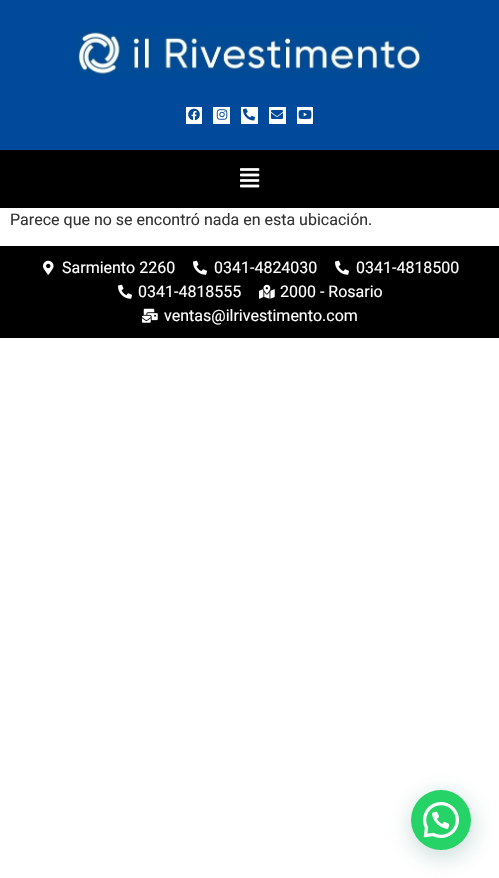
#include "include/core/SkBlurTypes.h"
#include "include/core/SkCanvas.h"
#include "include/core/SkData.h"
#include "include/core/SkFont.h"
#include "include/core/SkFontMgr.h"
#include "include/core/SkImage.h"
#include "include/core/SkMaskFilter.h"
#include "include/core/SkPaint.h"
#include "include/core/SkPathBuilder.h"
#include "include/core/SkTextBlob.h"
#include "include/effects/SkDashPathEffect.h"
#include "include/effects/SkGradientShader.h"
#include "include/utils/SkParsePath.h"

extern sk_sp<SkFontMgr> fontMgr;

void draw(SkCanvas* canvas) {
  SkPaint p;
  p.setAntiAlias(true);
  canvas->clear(SK_ColorWHITE);
  p.setColor(SkColorSetRGB(0, 73, 155));
  canvas->drawRect(SkRect::MakeLTRB(0, 0, 499, 150), p);
  canvas->drawImageRect(SkImages::DeferredFromEncodedData(SkData::MakeFromFileName("images/1.png")), SkRect::MakeLTRB(76, 26, 427, 76), SkSamplingOptions());
  p.setColor(SK_ColorWHITE);
  canvas->drawRect(SkRect::MakeLTRB(186, 107, 202, 124), p);
  canvas->drawImageRect(SkImages::DeferredFromEncodedData(SkData::MakeFromFileName("images/2.png")), SkRect::MakeLTRB(188, 108, 200, 121), SkSamplingOptions());
  canvas->drawRect(SkRect::MakeLTRB(213, 107, 230, 124), p);
  canvas->drawImageRect(SkImages::DeferredFromEncodedData(SkData::MakeFromFileName("images/3.png")), SkRect::MakeLTRB(216, 109, 228, 120), SkSamplingOptions());
  canvas->drawRect(SkRect::MakeLTRB(241, 107, 258, 124), p);
  canvas->drawImageRect(SkImages::DeferredFromEncodedData(SkData::MakeFromFileName("images/4.png")), SkRect::MakeLTRB(243, 108, 255, 121), SkSamplingOptions());
  canvas->drawRect(SkRect::MakeLTRB(269, 107, 286, 124), p);
  canvas->drawImageRect(SkImages::DeferredFromEncodedData(SkData::MakeFromFileName("images/5.png")), SkRect::MakeLTRB(271, 110, 283, 119), SkSamplingOptions());
  canvas->drawRect(SkRect::MakeLTRB(297, 107, 313, 124), p);
  canvas->drawImageRect(SkImages::DeferredFromEncodedData(SkData::MakeFromFileName("images/6.png")), SkRect::MakeLTRB(298, 110, 312, 119), SkSamplingOptions());
  p.setColor(SK_ColorBLACK);
  canvas->drawRect(SkRect::MakeLTRB(0, 150, 499, 208), p);
  canvas->drawImageRect(SkImages::DeferredFromEncodedData(SkData::MakeFromFileName("images/7.png")), SkRect::MakeLTRB(240, 168, 260, 188), SkSamplingOptions());
  canvas->drawRect(SkRect::MakeLTRB(0, 246, 499, 338), p);
  canvas->drawImageRect(SkImages::DeferredFromEncodedData(SkData::MakeFromFileName("images/8.png")), SkRect::MakeLTRB(43, 260, 54, 275), SkSamplingOptions());
  canvas->drawImageRect(SkImages::DeferredFromEncodedData(SkData::MakeFromFileName("images/9.png")), SkRect::MakeLTRB(193, 260, 207, 275), SkSamplingOptions());
  canvas->drawImageRect(SkImages::DeferredFromEncodedData(SkData::MakeFromFileName("images/9.png")), SkRect::MakeLTRB(335, 260, 349, 275), SkSamplingOptions());
  canvas->drawImageRect(SkImages::DeferredFromEncodedData(SkData::MakeFromFileName("images/9.png")), SkRect::MakeLTRB(118, 284, 132, 299), SkSamplingOptions());
  canvas->drawImageRect(SkImages::DeferredFromEncodedData(SkData::MakeFromFileName("images/10.png")), SkRect::MakeLTRB(259, 284, 275, 299), SkSamplingOptions());
  canvas->drawImageRect(SkImages::DeferredFromEncodedData(SkData::MakeFromFileName("images/11.png")), SkRect::MakeLTRB(142, 308, 158, 323), SkSamplingOptions());
  p.setColor(SkColorSetARGB(61, 7, 94, 84));
  p.setMaskFilter(SkMaskFilter::MakeBlur(kNormal_SkBlurStyle, 12));
  canvas->drawRoundRect(SkRect::MakeLTRB(412, 796, 472, 856), 30, 30, p);
  p.setMaskFilter(nullptr);
  p.setColor(SkColorSetRGB(37, 211, 102));
  canvas->drawCircle(441, 820, 30, p);
  canvas->drawImageRect(SkImages::DeferredFromEncodedData(SkData::MakeFromFileName("images/12.png")), SkRect::MakeLTRB(423, 802, 459, 838), SkSamplingOptions());
  SkFont font1(fontMgr->matchFamilyStyle("Roboto", SkFontStyle::Normal()), 16);
  font1.setSubpixel(true);
  p.setColor(SkColorSetRGB(51, 51, 51));
  canvas->drawString("Parece que no se encontró nada en esta ubicación.", 10, 225, font1, p);
  p.setColor(SK_ColorWHITE);
  canvas->drawString("Sarmiento 2260", 62, 273, font1, p);
  canvas->drawString("0341-4824030", 214, 273, font1, p);
  canvas->drawString("0341-4818500", 356, 273, font1, p);
  canvas->drawString("0341-4818555", 138, 297, font1, p);
  canvas->drawString("2000 - Rosario", 280, 297, font1, p);
  canvas->drawString("ventas@ilrivestimento.com", 164, 321, font1, p);
}
